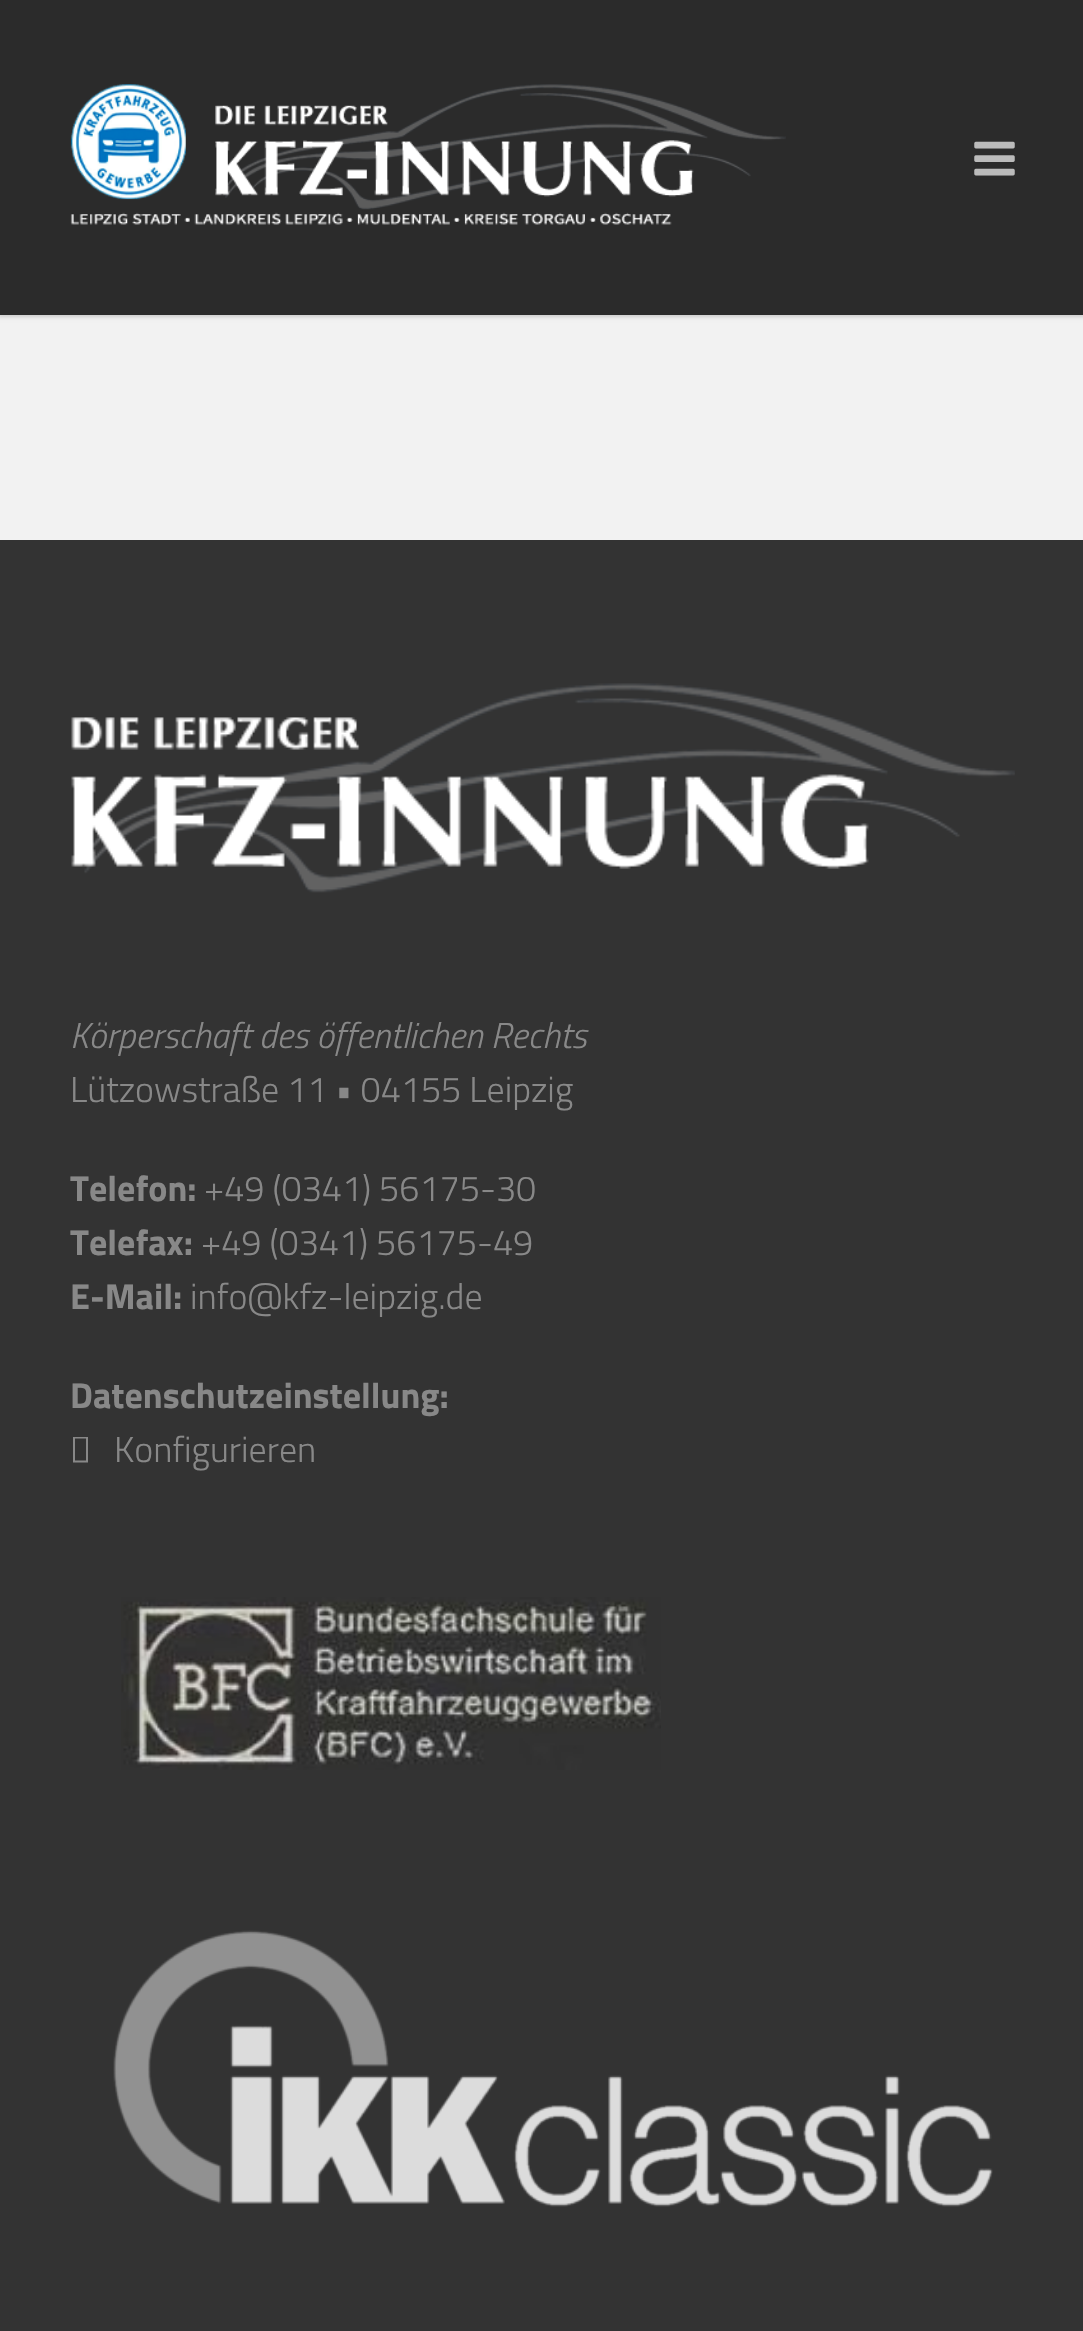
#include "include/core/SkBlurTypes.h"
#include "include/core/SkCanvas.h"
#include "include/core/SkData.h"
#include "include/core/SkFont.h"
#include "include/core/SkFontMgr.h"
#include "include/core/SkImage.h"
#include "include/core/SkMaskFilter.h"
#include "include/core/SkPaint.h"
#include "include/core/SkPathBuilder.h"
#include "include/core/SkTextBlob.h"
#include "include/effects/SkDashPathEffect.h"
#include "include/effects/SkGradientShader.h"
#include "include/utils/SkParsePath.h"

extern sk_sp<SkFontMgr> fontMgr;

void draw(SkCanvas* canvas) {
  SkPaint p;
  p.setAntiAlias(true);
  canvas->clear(SkColorSetRGB(242, 242, 242));
  p.setColor(SkColorSetARGB(41, 0, 0, 0));
  p.setMaskFilter(SkMaskFilter::MakeBlur(kNormal_SkBlurStyle, 2));
  canvas->drawRect(SkRect::MakeLTRB(-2, -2, 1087, 317), p);
  p.setMaskFilter(nullptr);
  p.setColor(SkColorSetRGB(43, 43, 43));
  canvas->drawRect(SkRect::MakeLTRB(0, 0, 1083, 315), p);
  canvas->drawImageRect(SkImages::DeferredFromEncodedData(SkData::MakeFromFileName("images/1.png")), SkRect::MakeLTRB(70, 84, 786, 225), SkSamplingOptions());
  canvas->drawImageRect(SkImages::DeferredFromEncodedData(SkData::MakeFromFileName("images/2.png")), SkRect::MakeLTRB(974, 141, 1015, 176), SkSamplingOptions());
  p.setColor(SkColorSetRGB(51, 51, 51));
  canvas->drawRect(SkRect::MakeLTRB(0, 540, 1083, 2331), p);
  canvas->drawImageRect(SkImages::DeferredFromEncodedData(SkData::MakeFromFileName("images/3.png")), SkRect::MakeLTRB(71, 683, 1015, 893), SkSamplingOptions());
  p.setColor(SkColorSetRGB(136, 136, 136));
  canvas->drawPath(SkPathBuilder().moveTo(73, 1462.5f).lineTo(73, 1437).lineTo(88, 1437).lineTo(88, 1462.5f).close().moveTo(75, 1460.5f).lineTo(86, 1460.5f).lineTo(86, 1438.5f).lineTo(75, 1438.5f).close().detach(), p);
  canvas->drawImageRect(SkImages::DeferredFromEncodedData(SkData::MakeFromFileName("images/4.png")), SkRect::MakeLTRB(121, 1597, 661, 1770), SkSamplingOptions());
  canvas->drawImageRect(SkImages::DeferredFromEncodedData(SkData::MakeFromFileName("images/5.png")), SkRect::MakeLTRB(113, 1930, 993, 2207), SkSamplingOptions());
  SkFont font1(fontMgr->matchFamilyStyle("Titillium Web", SkFontStyle(300, SkFontStyle::kNormal_Width, SkFontStyle::kItalic_Slant)), 36);
  font1.setSubpixel(true);
  canvas->drawString("Körperschaft des öffentlichen Rechts", 70, 1048, font1, p);
  SkFont font2(fontMgr->matchFamilyStyle("Titillium Web", SkFontStyle(300, SkFontStyle::kNormal_Width, SkFontStyle::kUpright_Slant)), 36);
  font2.setSubpixel(true);
  canvas->drawString("Lützowstraße 11 • 04155 Leipzig", 70, 1102, font2, p);
  SkFont font3(fontMgr->matchFamilyStyle("Titillium Web", SkFontStyle::Bold()), 36);
  font3.setSubpixel(true);
  canvas->drawString("Telefon:", 70, 1201, font3, p);
  canvas->drawString("+49 (0341) 56175-30", 204, 1201, font2, p);
  canvas->drawString("Telefax:", 70, 1255, font3, p);
  canvas->drawString("+49 (0341) 56175-49", 201, 1255, font2, p);
  canvas->drawString("E-Mail:", 70, 1309, font3, p);
  canvas->drawString("info@kfz-leipzig.de", 190, 1309, font2, p);
  canvas->drawString("Datenschutzeinstellung:", 70, 1408, font3, p);
  canvas->drawString("Konfigurieren", 114, 1462, font2, p);
}
